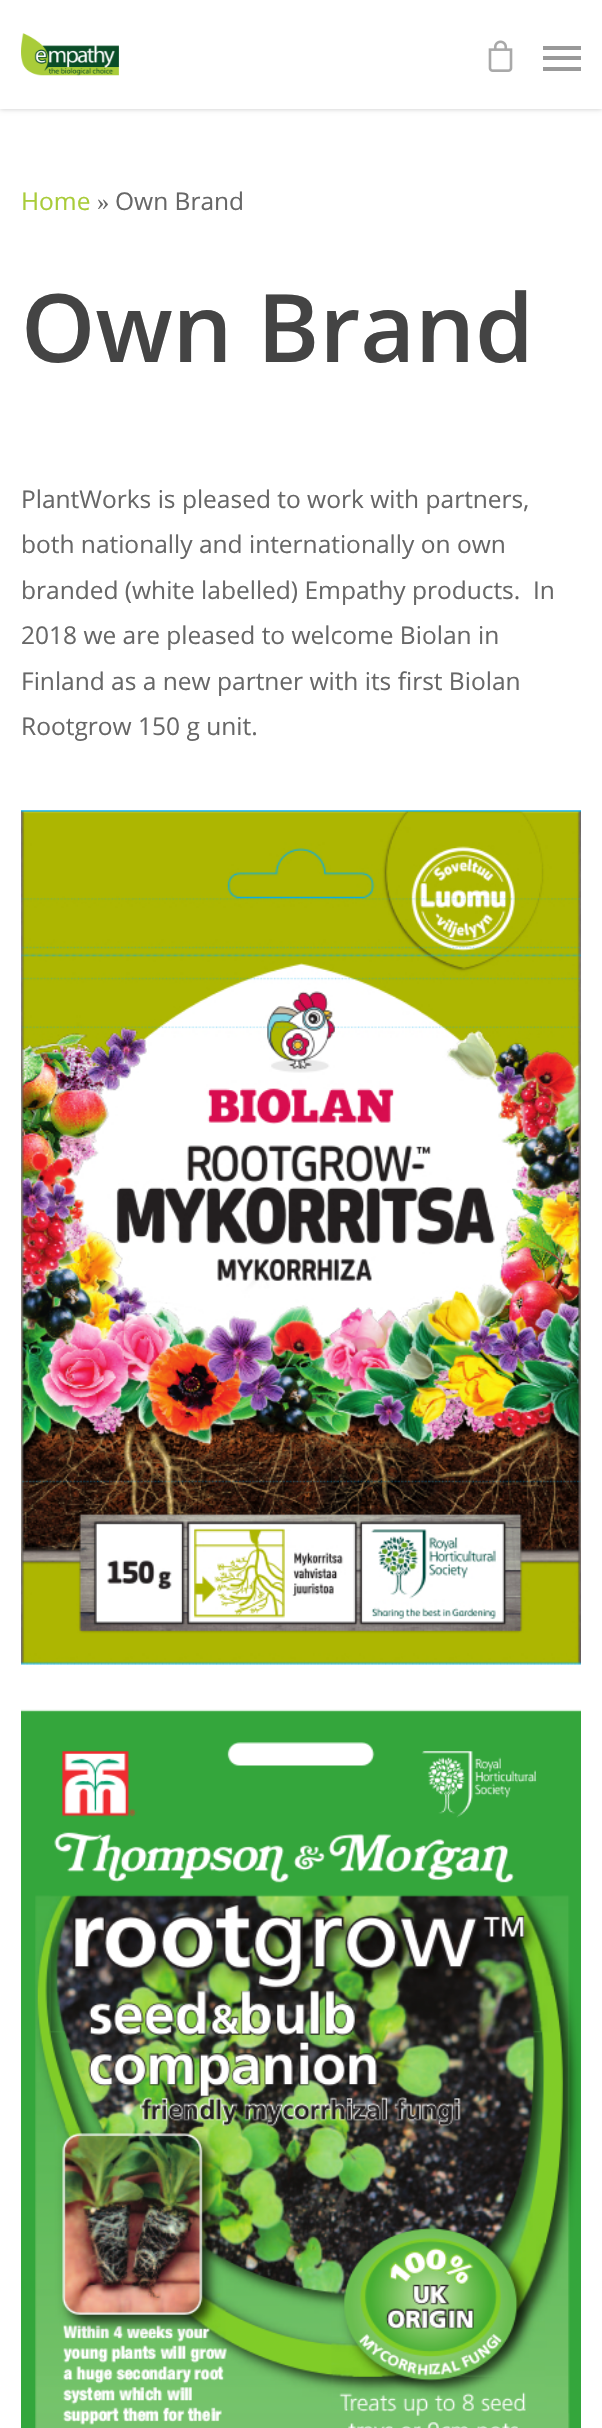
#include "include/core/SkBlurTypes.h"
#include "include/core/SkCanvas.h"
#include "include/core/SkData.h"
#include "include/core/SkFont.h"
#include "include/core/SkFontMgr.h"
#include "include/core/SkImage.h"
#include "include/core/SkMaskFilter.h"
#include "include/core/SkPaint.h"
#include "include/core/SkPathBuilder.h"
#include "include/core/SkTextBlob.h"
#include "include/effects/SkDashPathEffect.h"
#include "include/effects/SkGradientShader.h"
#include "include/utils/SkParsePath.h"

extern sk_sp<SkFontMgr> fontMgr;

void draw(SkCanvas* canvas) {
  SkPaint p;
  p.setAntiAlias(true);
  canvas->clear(SK_ColorWHITE);
  p.setColor(SkColorSetARGB(56, 0, 0, 0));
  p.setMaskFilter(SkMaskFilter::MakeBlur(kNormal_SkBlurStyle, 2.5f));
  canvas->drawRect(SkRect::MakeLTRB(0, 0, 602, 109), p);
  p.setMaskFilter(nullptr);
  p.setColor(SK_ColorWHITE);
  canvas->drawRect(SkRect::MakeLTRB(0, 0, 602, 109), p);
  canvas->drawImageRect(SkImages::DeferredFromEncodedData(SkData::MakeFromFileName("images/1.png")), SkRect::MakeLTRB(21, 33, 119, 76), SkSamplingOptions());
  canvas->drawImageRect(SkImages::DeferredFromEncodedData(SkData::MakeFromFileName("images/2.png")), SkRect::MakeLTRB(488, 40, 513, 72), SkSamplingOptions());
  p.setColor(SkColorSetRGB(153, 153, 153));
  canvas->drawRect(SkRect::MakeLTRB(543, 46, 581, 50), p);
  canvas->drawRect(SkRect::MakeLTRB(543, 67, 581, 71), p);
  canvas->drawRect(SkRect::MakeLTRB(543, 56, 581, 60), p);
  canvas->drawImageRect(SkImages::DeferredFromEncodedData(SkData::MakeFromFileName("images/3.png")), SkRect::MakeLTRB(21, 810, 581, 1665), SkSamplingOptions());
  canvas->drawImageRect(SkImages::DeferredFromEncodedData(SkData::MakeFromFileName("images/4.png")), SkRect::MakeLTRB(21, 1709, 581, 2428), SkSamplingOptions());
  SkFont font1(fontMgr->matchFamilyStyle("Open Sans", SkFontStyle::Normal()), 24.5f);
  font1.setSubpixel(true);
  p.setColor(SkColorSetRGB(169, 204, 57));
  canvas->drawString("Home", 21, 210, font1, p);
  SkFont font2(fontMgr->matchFamilyStyle("Liberation Serif", SkFontStyle::Normal()), 24.5f);
  font2.setSubpixel(true);
  p.setColor(SkColorSetRGB(103, 103, 103));
  canvas->drawString("»", 97, 210, font2, p);
  canvas->drawString("Own Brand", 115, 210, font1, p);
  SkFont font3(fontMgr->matchFamilyStyle("Open Sans", SkFontStyle(600, SkFontStyle::kNormal_Width, SkFontStyle::kUpright_Slant)), 94.5f);
  font3.setSubpixel(true);
  p.setColor(SkColorSetRGB(68, 68, 68));
  canvas->drawString("Own Brand", 21, 362, font3, p);
  p.setColor(SkColorSetRGB(103, 103, 103));
  canvas->drawString("PlantWorks is pleased to work with partners,", 21, 508, font1, p);
  canvas->drawString("both nationally and internationally on own", 21, 553, font1, p);
  canvas->drawString("branded (white labelled) Empathy products.  In", 21, 599, font1, p);
  canvas->drawString("2018 we are pleased to welcome Biolan in", 21, 644, font1, p);
  canvas->drawString("Finland as a new partner with its first Biolan", 21, 690, font1, p);
  canvas->drawString("Rootgrow 150 g unit.", 21, 735, font1, p);
}
